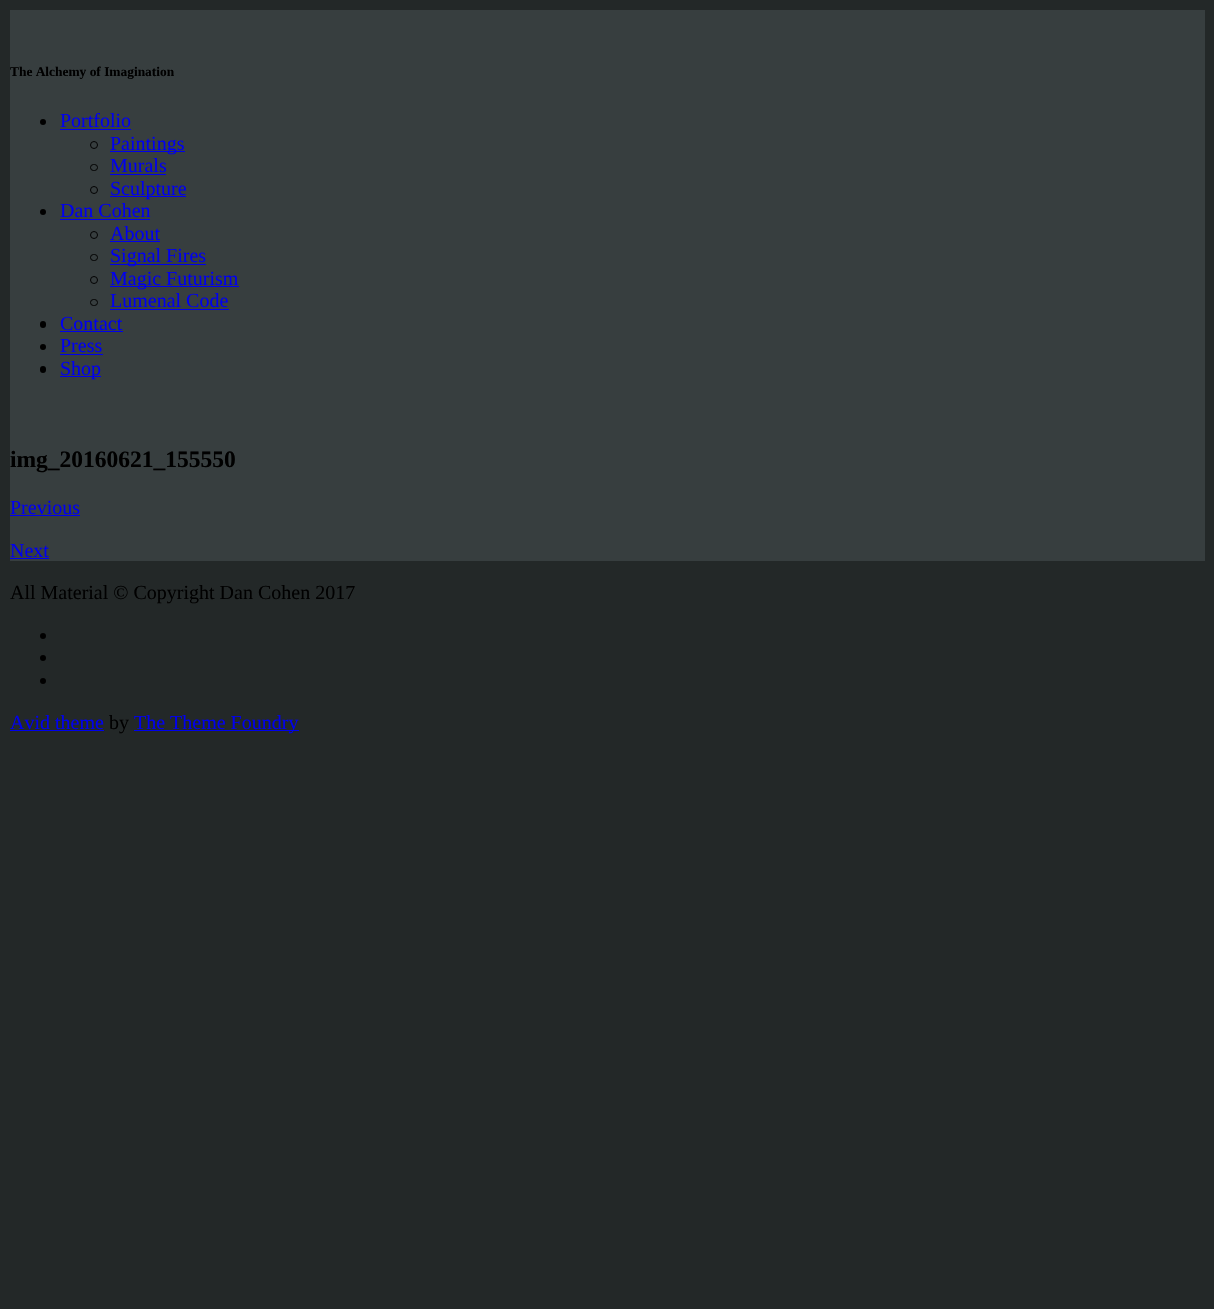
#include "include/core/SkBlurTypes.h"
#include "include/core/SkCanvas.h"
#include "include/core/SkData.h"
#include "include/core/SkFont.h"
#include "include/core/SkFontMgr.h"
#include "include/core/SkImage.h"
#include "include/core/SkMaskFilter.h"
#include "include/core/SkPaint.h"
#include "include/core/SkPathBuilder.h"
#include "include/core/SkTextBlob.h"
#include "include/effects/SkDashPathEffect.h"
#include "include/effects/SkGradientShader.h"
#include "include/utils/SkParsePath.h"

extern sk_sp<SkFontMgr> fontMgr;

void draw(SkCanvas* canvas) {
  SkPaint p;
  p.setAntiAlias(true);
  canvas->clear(SkColorSetRGB(35, 40, 40));
  p.setColor(SkColorSetRGB(55, 62, 63));
  canvas->drawRect(SkRect::MakeLTRB(10, 10, 1205, 561), p);
  p.setColor(SK_ColorBLACK);
  canvas->drawCircle(43, 122, 3, p);
  p.setColor(SkColorSetRGB(0, 0, 238));
  canvas->drawRect(SkRect::MakeLTRB(60, 129, 131, 130), p);
  p.setStyle(SkPaint::kStroke_Style);
  p.setStrokeWidth(1);
  p.setColor(SK_ColorBLACK);
  canvas->drawCircle(94, 145, 3.5f, p);
  p.setStyle(SkPaint::kFill_Style);
  p.setColor(SkColorSetRGB(0, 0, 238));
  canvas->drawRect(SkRect::MakeLTRB(110, 151, 185, 152), p);
  p.setStyle(SkPaint::kStroke_Style);
  p.setColor(SK_ColorBLACK);
  canvas->drawRoundRect(SkRect::MakeLTRB(90.5f, 164.5f, 97.5f, 170.5f), 3, 3, p);
  p.setStyle(SkPaint::kFill_Style);
  p.setColor(SkColorSetRGB(0, 0, 238));
  canvas->drawRect(SkRect::MakeLTRB(110, 174, 166, 175), p);
  p.setStyle(SkPaint::kStroke_Style);
  p.setColor(SK_ColorBLACK);
  canvas->drawCircle(94, 190, 3.5f, p);
  p.setStyle(SkPaint::kFill_Style);
  p.setColor(SkColorSetRGB(0, 0, 238));
  canvas->drawRect(SkRect::MakeLTRB(110, 196, 186, 197), p);
  p.setColor(SK_ColorBLACK);
  canvas->drawCircle(43, 212, 3, p);
  p.setColor(SkColorSetRGB(0, 0, 238));
  canvas->drawRect(SkRect::MakeLTRB(60, 219, 150, 220), p);
  p.setStyle(SkPaint::kStroke_Style);
  p.setColor(SK_ColorBLACK);
  canvas->drawCircle(94, 235, 3.5f, p);
  p.setStyle(SkPaint::kFill_Style);
  p.setColor(SkColorSetRGB(0, 0, 238));
  canvas->drawRect(SkRect::MakeLTRB(110, 241, 160, 242), p);
  p.setStyle(SkPaint::kStroke_Style);
  p.setColor(SK_ColorBLACK);
  canvas->drawRoundRect(SkRect::MakeLTRB(90.5f, 254.5f, 97.5f, 260.5f), 3, 3, p);
  p.setStyle(SkPaint::kFill_Style);
  p.setColor(SkColorSetRGB(0, 0, 238));
  canvas->drawRect(SkRect::MakeLTRB(110, 264, 206, 265), p);
  p.setStyle(SkPaint::kStroke_Style);
  p.setColor(SK_ColorBLACK);
  canvas->drawCircle(94, 280, 3.5f, p);
  p.setStyle(SkPaint::kFill_Style);
  p.setColor(SkColorSetRGB(0, 0, 238));
  canvas->drawRect(SkRect::MakeLTRB(110, 286, 239, 287), p);
  p.setStyle(SkPaint::kStroke_Style);
  p.setColor(SK_ColorBLACK);
  canvas->drawRoundRect(SkRect::MakeLTRB(90.5f, 299.5f, 97.5f, 305.5f), 3, 3, p);
  p.setStyle(SkPaint::kFill_Style);
  p.setColor(SkColorSetRGB(0, 0, 238));
  canvas->drawRect(SkRect::MakeLTRB(110, 309, 229, 310), p);
  p.setColor(SK_ColorBLACK);
  canvas->drawRoundRect(SkRect::MakeLTRB(40, 321, 46, 328), 3, 3, p);
  p.setColor(SkColorSetRGB(0, 0, 238));
  canvas->drawRect(SkRect::MakeLTRB(60, 331, 123, 332), p);
  p.setColor(SK_ColorBLACK);
  canvas->drawCircle(43, 347, 3, p);
  p.setColor(SkColorSetRGB(0, 0, 238));
  canvas->drawRect(SkRect::MakeLTRB(60, 354, 103, 355), p);
  p.setColor(SK_ColorBLACK);
  canvas->drawRoundRect(SkRect::MakeLTRB(40, 366, 46, 373), 3, 3, p);
  p.setColor(SkColorSetRGB(0, 0, 238));
  canvas->drawRect(SkRect::MakeLTRB(60, 376, 101, 377), p);
  canvas->drawRect(SkRect::MakeLTRB(10, 515, 80, 516), p);
  canvas->drawRect(SkRect::MakeLTRB(10, 558, 49, 559), p);
  p.setColor(SK_ColorBLACK);
  canvas->drawCircle(43, 636, 3, p);
  canvas->drawCircle(43, 658, 3, p);
  canvas->drawCircle(43, 681, 3, p);
  p.setColor(SkColorSetRGB(0, 0, 238));
  canvas->drawRect(SkRect::MakeLTRB(10, 730, 104, 731), p);
  canvas->drawRect(SkRect::MakeLTRB(134, 730, 299, 731), p);
  SkFont font1(fontMgr->matchFamilyStyle("Liberation Serif", SkFontStyle::Bold()), 13.4f);
  font1.setSubpixel(true);
  p.setColor(SK_ColorBLACK);
  canvas->drawString("The Alchemy of Imagination", 10, 76, font1, p);
  SkFont font2(fontMgr->matchFamilyStyle("Liberation Serif", SkFontStyle::Normal()), 20);
  font2.setSubpixel(true);
  p.setColor(SkColorSetRGB(0, 0, 238));
  canvas->drawString("Portfolio", 60, 127, font2, p);
  canvas->drawString("Paintings", 110, 150, font2, p);
  canvas->drawString("Murals", 110, 172, font2, p);
  canvas->drawString("Sculpture", 110, 195, font2, p);
  canvas->drawString("Dan Cohen", 60, 217, font2, p);
  canvas->drawString("About", 110, 240, font2, p);
  canvas->drawString("Signal Fires", 110, 262, font2, p);
  canvas->drawString("Magic Futurism", 110, 285, font2, p);
  canvas->drawString("Lumenal Code", 110, 307, font2, p);
  canvas->drawString("Contact", 60, 330, font2, p);
  canvas->drawString("Press", 60, 352, font2, p);
  canvas->drawString("Shop", 60, 375, font2, p);
  SkFont font3(fontMgr->matchFamilyStyle("Liberation Serif", SkFontStyle::Bold()), 23.5f);
  font3.setSubpixel(true);
  p.setColor(SK_ColorBLACK);
  canvas->drawString("img_20160621_155550", 10, 467, font3, p);
  p.setColor(SkColorSetRGB(0, 0, 238));
  canvas->drawString("Previous", 10, 514, font2, p);
  canvas->drawString("Next", 10, 557, font2, p);
  p.setColor(SK_ColorBLACK);
  canvas->drawString("All Material © Copyright Dan Cohen 2017", 10, 599, font2, p);
  p.setColor(SkColorSetRGB(0, 0, 238));
  canvas->drawString("Avid theme", 10, 729, font2, p);
  p.setColor(SK_ColorBLACK);
  canvas->drawString("by", 109, 729, font2, p);
  p.setColor(SkColorSetRGB(0, 0, 238));
  canvas->drawString("The Theme Foundry", 134, 729, font2, p);
}
